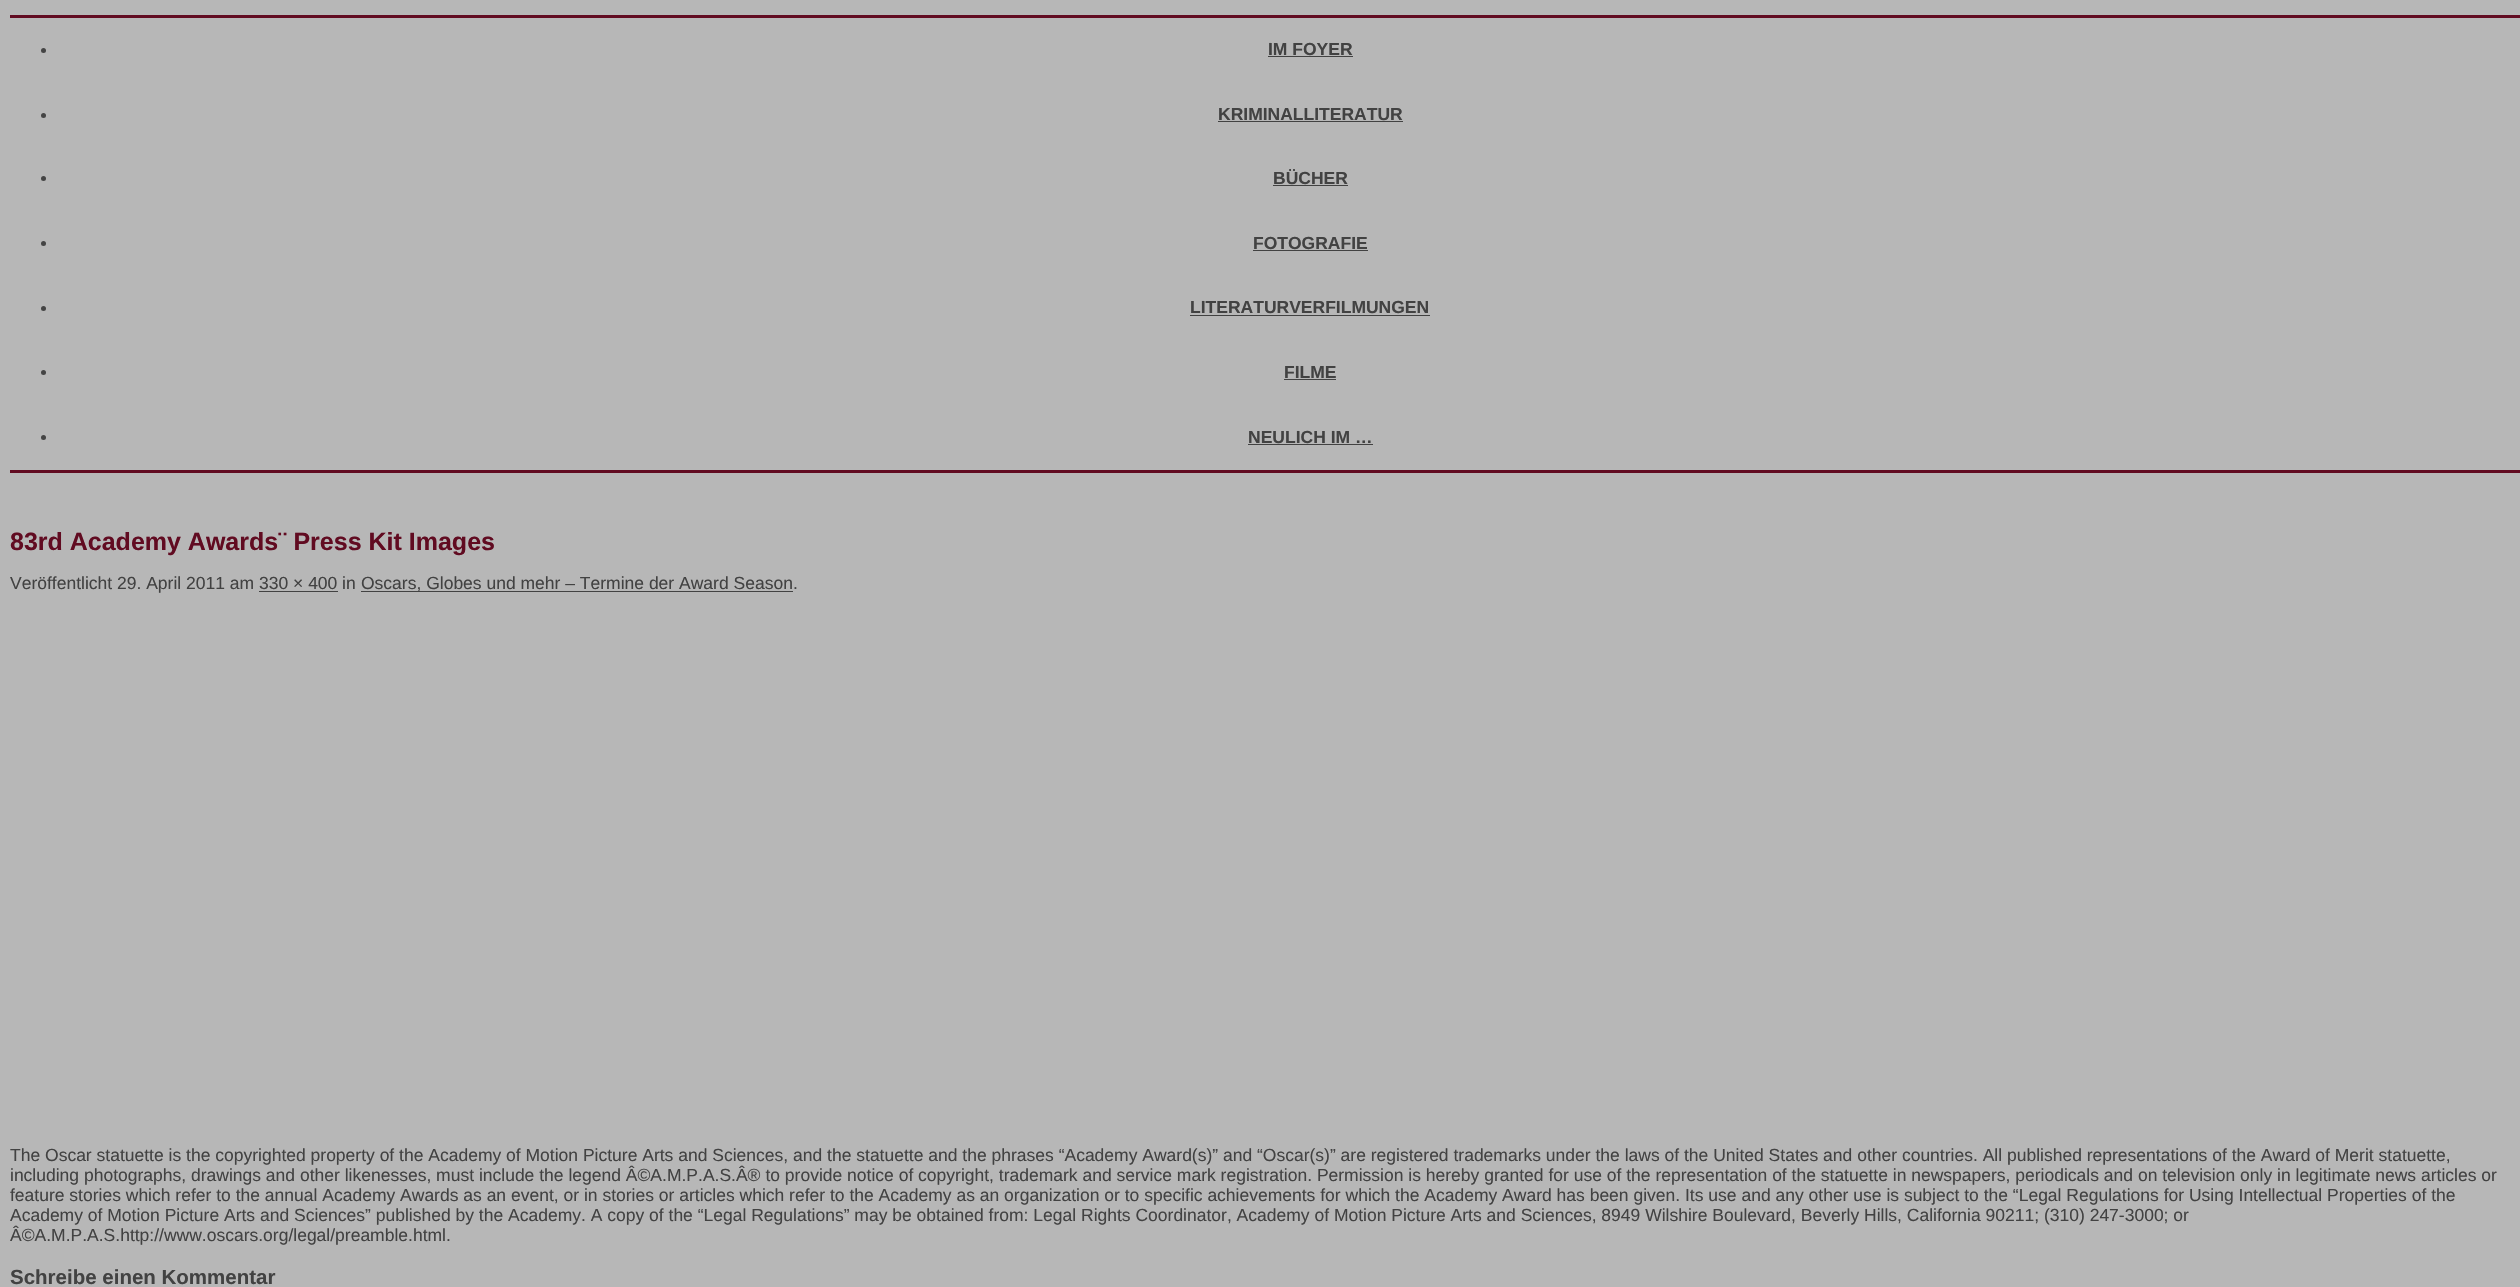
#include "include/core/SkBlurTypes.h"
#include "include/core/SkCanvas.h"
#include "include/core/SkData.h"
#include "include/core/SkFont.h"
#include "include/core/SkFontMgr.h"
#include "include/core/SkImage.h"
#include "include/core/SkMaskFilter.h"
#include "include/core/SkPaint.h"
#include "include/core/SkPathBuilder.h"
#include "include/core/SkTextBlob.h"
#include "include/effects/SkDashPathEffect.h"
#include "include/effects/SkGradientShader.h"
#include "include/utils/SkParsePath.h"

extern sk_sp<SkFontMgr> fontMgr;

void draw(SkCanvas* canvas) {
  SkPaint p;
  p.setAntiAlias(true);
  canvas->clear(SkColorSetRGB(183, 183, 183));
  p.setColor(SkColorSetRGB(97, 11, 33));
  canvas->drawRect(SkRect::MakeLTRB(10, 15, 2520, 18), p);
  canvas->drawRect(SkRect::MakeLTRB(10, 470, 2520, 473), p);
  p.setColor(SkColorSetRGB(68, 68, 68));
  canvas->drawCircle(43.5f, 50.5f, 2.5f, p);
  p.setColor(SkColorSetRGB(66, 66, 66));
  canvas->drawRect(SkRect::MakeLTRB(1268, 56, 1353, 57), p);
  p.setColor(SkColorSetRGB(68, 68, 68));
  canvas->drawCircle(43.5f, 115.5f, 2.5f, p);
  p.setColor(SkColorSetRGB(66, 66, 66));
  canvas->drawRect(SkRect::MakeLTRB(1218, 121, 1403, 122), p);
  p.setColor(SkColorSetRGB(68, 68, 68));
  canvas->drawCircle(43.5f, 178.5f, 2.5f, p);
  p.setColor(SkColorSetRGB(66, 66, 66));
  canvas->drawRect(SkRect::MakeLTRB(1273, 185, 1348, 186), p);
  p.setColor(SkColorSetRGB(68, 68, 68));
  canvas->drawCircle(43.5f, 243.5f, 2.5f, p);
  p.setColor(SkColorSetRGB(66, 66, 66));
  canvas->drawRect(SkRect::MakeLTRB(1253, 250, 1368, 251), p);
  p.setColor(SkColorSetRGB(68, 68, 68));
  canvas->drawCircle(43.5f, 308.5f, 2.5f, p);
  p.setColor(SkColorSetRGB(66, 66, 66));
  canvas->drawRect(SkRect::MakeLTRB(1190, 315, 1430, 316), p);
  p.setColor(SkColorSetRGB(68, 68, 68));
  canvas->drawCircle(43.5f, 372.5f, 2.5f, p);
  p.setColor(SkColorSetRGB(66, 66, 66));
  canvas->drawRect(SkRect::MakeLTRB(1284, 379, 1336, 380), p);
  p.setColor(SkColorSetRGB(68, 68, 68));
  canvas->drawCircle(43.5f, 437.5f, 2.5f, p);
  p.setColor(SkColorSetRGB(66, 66, 66));
  canvas->drawRect(SkRect::MakeLTRB(1248, 444, 1373, 445), p);
  canvas->drawRect(SkRect::MakeLTRB(259, 591, 338, 592), p);
  canvas->drawRect(SkRect::MakeLTRB(361, 591, 793, 592), p);
  SkFont font1(fontMgr->matchFamilyStyle("Liberation Sans", SkFontStyle::Bold()), 17.5f);
  font1.setSubpixel(true);
  canvas->drawString("IM FOYER", 1268, 55, font1, p);
  canvas->drawString("KRIMINALLITERATUR", 1218, 120, font1, p);
  canvas->drawString("BÜCHER", 1273, 184, font1, p);
  canvas->drawString("FOTOGRAFIE", 1253, 249, font1, p);
  canvas->drawString("LITERATURVERFILMUNGEN", 1190, 313, font1, p);
  canvas->drawString("FILME", 1284, 378, font1, p);
  canvas->drawString("NEULICH IM …", 1248, 443, font1, p);
  SkFont font2(fontMgr->matchFamilyStyle("Liberation Sans", SkFontStyle::Bold()), 25);
  font2.setSubpixel(true);
  p.setColor(SkColorSetRGB(97, 11, 33));
  canvas->drawString("83rd Academy Awards¨ Press Kit Images", 10, 550, font2, p);
  SkFont font3(fontMgr->matchFamilyStyle("Liberation Sans", SkFontStyle::Normal()), 17.5f);
  font3.setSubpixel(true);
  p.setColor(SkColorSetRGB(66, 66, 66));
  canvas->drawString("Veröffentlicht 29. April 2011 am", 10, 589, font3, p);
  canvas->drawString("330 × 400", 259, 589, font3, p);
  canvas->drawString("in", 342, 589, font3, p);
  canvas->drawString("Oscars, Globes und mehr – Termine der Award Season", 361, 589, font3, p);
  canvas->drawString(".", 793, 589, font3, p);
  canvas->drawString("The Oscar statuette is the copyrighted property of the Academy of Motion Picture Arts and Sciences, and the statuette and the phrases “Academy Award(s)” and “Oscar(s)” are registered trademarks under the laws of the United States and other countries. All published representations of the Award of Merit statuette,", 10, 1161, font3, p);
  canvas->drawString("including photographs, drawings and other likenesses, must include the legend Â©A.M.P.A.S.Â® to provide notice of copyright, trademark and service mark registration. Permission is hereby granted for use of the representation of the statuette in newspapers, periodicals and on television only in legitimate news articles or", 10, 1181, font3, p);
  canvas->drawString("feature stories which refer to the annual Academy Awards as an event, or in stories or articles which refer to the Academy as an organization or to specific achievements for which the Academy Award has been given. Its use and any other use is subject to the “Legal Regulations for Using Intellectual Properties of the", 10, 1201, font3, p);
  canvas->drawString("Academy of Motion Picture Arts and Sciences” published by the Academy. A copy of the “Legal Regulations” may be obtained from: Legal Rights Coordinator, Academy of Motion Picture Arts and Sciences, 8949 Wilshire Boulevard, Beverly Hills, California 90211; (310) 247-3000; or", 10, 1221, font3, p);
  canvas->drawString("Â©A.M.P.A.S.http://www.oscars.org/legal/preamble.html.", 10, 1241, font3, p);
  SkFont font4(fontMgr->matchFamilyStyle("Liberation Sans", SkFontStyle::Bold()), 20.5f);
  font4.setSubpixel(true);
  canvas->drawString("Schreibe einen Kommentar", 10, 1284, font4, p);
}
